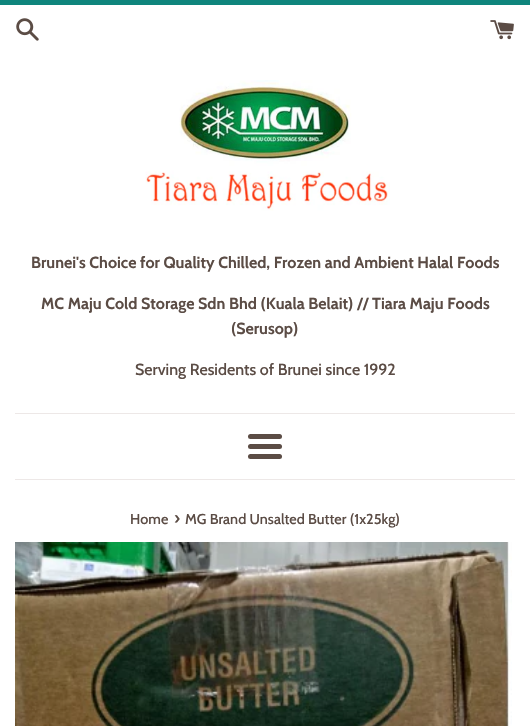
#include "include/core/SkBlurTypes.h"
#include "include/core/SkCanvas.h"
#include "include/core/SkData.h"
#include "include/core/SkFont.h"
#include "include/core/SkFontMgr.h"
#include "include/core/SkImage.h"
#include "include/core/SkMaskFilter.h"
#include "include/core/SkPaint.h"
#include "include/core/SkPathBuilder.h"
#include "include/core/SkTextBlob.h"
#include "include/effects/SkDashPathEffect.h"
#include "include/effects/SkGradientShader.h"
#include "include/utils/SkParsePath.h"

extern sk_sp<SkFontMgr> fontMgr;

void draw(SkCanvas* canvas) {
  SkPaint p;
  p.setAntiAlias(true);
  canvas->clear(SK_ColorWHITE);
  p.setColor(SkColorSetRGB(15, 133, 124));
  canvas->drawRect(SkRect::MakeLTRB(0, 0, 530, 5), p);
  canvas->drawImageRect(SkImages::DeferredFromEncodedData(SkData::MakeFromFileName("images/1.png")), SkRect::MakeLTRB(16, 18, 39, 41), SkSamplingOptions());
  canvas->drawImageRect(SkImages::DeferredFromEncodedData(SkData::MakeFromFileName("images/2.png")), SkRect::MakeLTRB(490, 20, 514, 40), SkSamplingOptions());
  canvas->drawImageRect(SkImages::DeferredFromEncodedData(SkData::MakeFromFileName("images/3.png")), SkRect::MakeLTRB(145, 80, 390, 211), SkSamplingOptions());
  p.setColor(SkColorSetRGB(237, 232, 231));
  canvas->drawRect(SkRect::MakeLTRB(15, 413, 515, 414), p);
  p.setColor(SkColorSetRGB(91, 76, 69));
  canvas->drawRoundRect(SkRect::MakeLTRB(248, 434, 282, 439), 2.5f, 2.5f, p);
  canvas->drawRoundRect(SkRect::MakeLTRB(248, 444, 282, 449), 2.5f, 2.5f, p);
  canvas->drawRoundRect(SkRect::MakeLTRB(248, 454, 282, 459), 2.5f, 2.5f, p);
  p.setColor(SkColorSetRGB(237, 232, 231));
  canvas->drawRect(SkRect::MakeLTRB(15, 479, 515, 480), p);
  canvas->drawImageRect(SkImages::DeferredFromEncodedData(SkData::MakeFromFileName("images/4.png")), SkRect::MakeLTRB(15, 542, 512, 726), SkSamplingOptions());
  SkFont font1(fontMgr->matchFamilyStyle("Cabin", SkFontStyle::Bold()), 16);
  font1.setSubpixel(true);
  p.setColor(SkColorSetRGB(91, 76, 69));
  canvas->drawString("Brunei's Choice for Quality Chilled, Frozen and Ambient Halal Foods", 31, 268, font1, p);
  canvas->drawString("MC Maju Cold Storage Sdn Bhd (Kuala Belait) // Tiara Maju Foods", 41, 309, font1, p);
  canvas->drawString("(Serusop)", 231, 334, font1, p);
  SkFont font2(fontMgr->matchFamilyStyle("Cabin", SkFontStyle(500, SkFontStyle::kNormal_Width, SkFontStyle::kUpright_Slant)), 16);
  font2.setSubpixel(true);
  canvas->drawString("Serving Residents of Brunei since 1992", 135, 375, font2, p);
  SkFont font3(fontMgr->matchFamilyStyle("Cabin", SkFontStyle(500, SkFontStyle::kNormal_Width, SkFontStyle::kUpright_Slant)), 14.4f);
  font3.setSubpixel(true);
  canvas->drawString("Home", 130, 524, font3, p);
  SkFont font4(fontMgr->matchFamilyStyle("Cabin", SkFontStyle(500, SkFontStyle::kNormal_Width, SkFontStyle::kUpright_Slant)), 18);
  font4.setSubpixel(true);
  canvas->drawString("›", 174, 524, font4, p);
  canvas->drawString("MG Brand Unsalted Butter (1x25kg)", 185, 524, font3, p);
}
